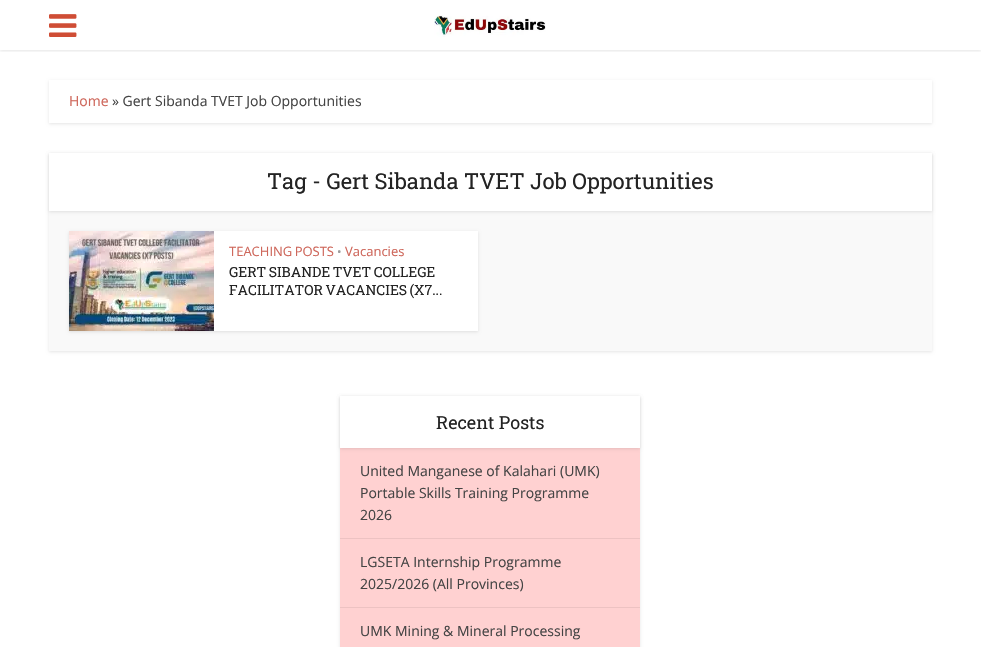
#include "include/core/SkBlurTypes.h"
#include "include/core/SkCanvas.h"
#include "include/core/SkData.h"
#include "include/core/SkFont.h"
#include "include/core/SkFontMgr.h"
#include "include/core/SkImage.h"
#include "include/core/SkMaskFilter.h"
#include "include/core/SkPaint.h"
#include "include/core/SkPathBuilder.h"
#include "include/core/SkTextBlob.h"
#include "include/effects/SkDashPathEffect.h"
#include "include/effects/SkGradientShader.h"
#include "include/utils/SkParsePath.h"

extern sk_sp<SkFontMgr> fontMgr;

void draw(SkCanvas* canvas) {
  SkPaint p;
  p.setAntiAlias(true);
  auto spacedText = [&](const char* s, float x, float y, const SkFont& font, const SkPaint& ink, float letter, float word) {
    std::vector<SkGlyphID> glyphs(font.countText(s, strlen(s), SkTextEncoding::kUTF8));
    std::vector<float> xs(glyphs.size());
    font.textToGlyphs(s, strlen(s), SkTextEncoding::kUTF8, glyphs);
    font.getXPos(glyphs, xs, x);
    float extra = 0;
    for (size_t i = 0; i < glyphs.size(); i++) {
      xs[i] += extra;
      extra += letter + word * (glyphs[i] == font.unicharToGlyph(' '));
    }
    canvas->drawTextBlob(SkTextBlob::MakeFromPosHGlyphs(glyphs, xs, y, font), 0, 0, ink);
  };
  canvas->clear(SK_ColorWHITE);
  canvas->save();
  canvas->clipRect(SkRect::MakeLTRB(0, 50, 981, 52));
  p.setColor(SkColorSetARGB(26, 0, 0, 0));
  p.setMaskFilter(SkMaskFilter::MakeBlur(kNormal_SkBlurStyle, 1.5f));
  canvas->drawRect(SkRect::MakeLTRB(0, 1, 981, 51), p);
  p.setMaskFilter(nullptr);
  canvas->restore();
  canvas->drawImageRect(SkImages::DeferredFromEncodedData(SkData::MakeFromFileName("images/1.png")), SkRect::MakeLTRB(49, 14, 77, 37), SkSamplingOptions());
  canvas->drawImageRect(SkImages::DeferredFromEncodedData(SkData::MakeFromFileName("images/2.png")), SkRect::MakeLTRB(434, 15, 546, 37), SkSamplingOptions());
  canvas->save();
  canvas->clipPath(SkPathBuilder(SkPathFillType::kEvenOdd).moveTo(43, 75).lineTo(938, 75).lineTo(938, 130).lineTo(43, 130).close().moveTo(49, 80).lineTo(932, 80).lineTo(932, 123).lineTo(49, 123).close().detach(), true);
  p.setMaskFilter(SkMaskFilter::MakeBlur(kNormal_SkBlurStyle, 1.5f));
  canvas->drawRect(SkRect::MakeLTRB(49, 81, 932, 124), p);
  p.setMaskFilter(nullptr);
  canvas->restore();
  p.setMaskFilter(SkMaskFilter::MakeBlur(kNormal_SkBlurStyle, 1.5f));
  canvas->drawRect(SkRect::MakeLTRB(49, 154, 932, 352), p);
  p.setMaskFilter(nullptr);
  p.setColor(SkColorSetRGB(249, 249, 249));
  canvas->drawRect(SkRect::MakeLTRB(49, 211, 932, 351), p);
  p.setColor(SkColorSetARGB(26, 0, 0, 0));
  p.setMaskFilter(SkMaskFilter::MakeBlur(kNormal_SkBlurStyle, 1.5f));
  canvas->drawRect(SkRect::MakeLTRB(49, 154, 932, 212), p);
  p.setMaskFilter(nullptr);
  p.setColor(SK_ColorWHITE);
  canvas->drawRect(SkRect::MakeLTRB(49, 153, 932, 211), p);
  p.setColor(SkColorSetARGB(26, 0, 0, 0));
  p.setMaskFilter(SkMaskFilter::MakeBlur(kNormal_SkBlurStyle, 1.5f));
  canvas->drawRect(SkRect::MakeLTRB(69, 232, 478, 332), p);
  p.setMaskFilter(nullptr);
  p.setColor(SK_ColorWHITE);
  canvas->drawRect(SkRect::MakeLTRB(214, 231, 478, 331), p);
  canvas->drawImageRect(SkImages::DeferredFromEncodedData(SkData::MakeFromFileName("images/3.png")), SkRect::MakeLTRB(69, 231, 214, 331), SkSamplingOptions());
  p.setColor(SkColorSetARGB(26, 0, 0, 0));
  p.setMaskFilter(SkMaskFilter::MakeBlur(kNormal_SkBlurStyle, 1.5f));
  canvas->drawRect(SkRect::MakeLTRB(340, 397, 640, 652), p);
  p.setMaskFilter(nullptr);
  p.setColor(SkColorSetRGB(255, 209, 209));
  canvas->drawRect(SkRect::MakeLTRB(340, 448, 640, 647), p);
  p.setColor(SkColorSetARGB(26, 0, 0, 0));
  p.setMaskFilter(SkMaskFilter::MakeBlur(kNormal_SkBlurStyle, 1.5f));
  canvas->drawRect(SkRect::MakeLTRB(340, 397, 640, 449), p);
  p.setMaskFilter(nullptr);
  p.setColor(SK_ColorWHITE);
  canvas->drawRect(SkRect::MakeLTRB(340, 396, 640, 448), p);
  p.setColor(SkColorSetRGB(237, 194, 194));
  canvas->drawRect(SkRect::MakeLTRB(340, 538, 640, 539), p);
  canvas->drawRect(SkRect::MakeLTRB(340, 607, 640, 608), p);
  SkFont font1(fontMgr->matchFamilyStyle("Open Sans", SkFontStyle::Normal()), 14);
  font1.setSubpixel(true);
  p.setColor(SkColorSetRGB(206, 102, 90));
  canvas->drawString("Home", 69, 106, font1, p);
  p.setColor(SkColorSetRGB(68, 68, 68));
  canvas->drawString("» Gert Sibanda TVET Job Opportunities", 112, 106, font1, p);
  SkFont font2(fontMgr->matchFamilyStyle("Roboto Slab", SkFontStyle::Normal()), 22);
  font2.setSubpixel(true);
  p.setColor(SkColorSetRGB(35, 35, 35));
  canvas->drawString("Tag - Gert Sibanda TVET Job Opportunities", 267, 189, font2, p);
  SkFont font3(fontMgr->matchFamilyStyle("Open Sans", SkFontStyle::Normal()), 13);
  font3.setSubpixel(true);
  p.setColor(SkColorSetRGB(206, 102, 90));
  spacedText("TEACHING POSTS", 229, 256, font3, p, 0, -1);
  SkFont font4(fontMgr->matchFamilyStyle("Open Sans", SkFontStyle::Normal()), 12);
  font4.setSubpixel(true);
  p.setColor(SkColorSetRGB(155, 155, 155));
  canvas->drawString("•", 337, 256, font4, p);
  p.setColor(SkColorSetRGB(206, 102, 90));
  canvas->drawString("Vacancies", 345, 256, font3, p);
  SkFont font5(fontMgr->matchFamilyStyle("Roboto Slab", SkFontStyle::Normal()), 14);
  font5.setSubpixel(true);
  p.setColor(SkColorSetRGB(35, 35, 35));
  spacedText("GERT SIBANDE TVET COLLEGE", 229, 277, font5, p, 0, -1);
  spacedText("FACILITATOR VACANCIES (X7...", 229, 295, font5, p, 0, -1);
  SkFont font6(fontMgr->matchFamilyStyle("Roboto Slab", SkFontStyle::Normal()), 18);
  font6.setSubpixel(true);
  canvas->drawString("Recent Posts", 436, 429, font6, p);
  p.setColor(SkColorSetRGB(68, 68, 68));
  canvas->drawString("United Manganese of Kalahari (UMK)", 360, 476, font1, p);
  canvas->drawString("Portable Skills Training Programme", 360, 498, font1, p);
  canvas->drawString("2026", 360, 520, font1, p);
  canvas->drawString("LGSETA Internship Programme", 360, 567, font1, p);
  canvas->drawString("2025/2026 (All Provinces)", 360, 589, font1, p);
  canvas->drawString("UMK Mining & Mineral Processing", 360, 636, font1, p);
}
